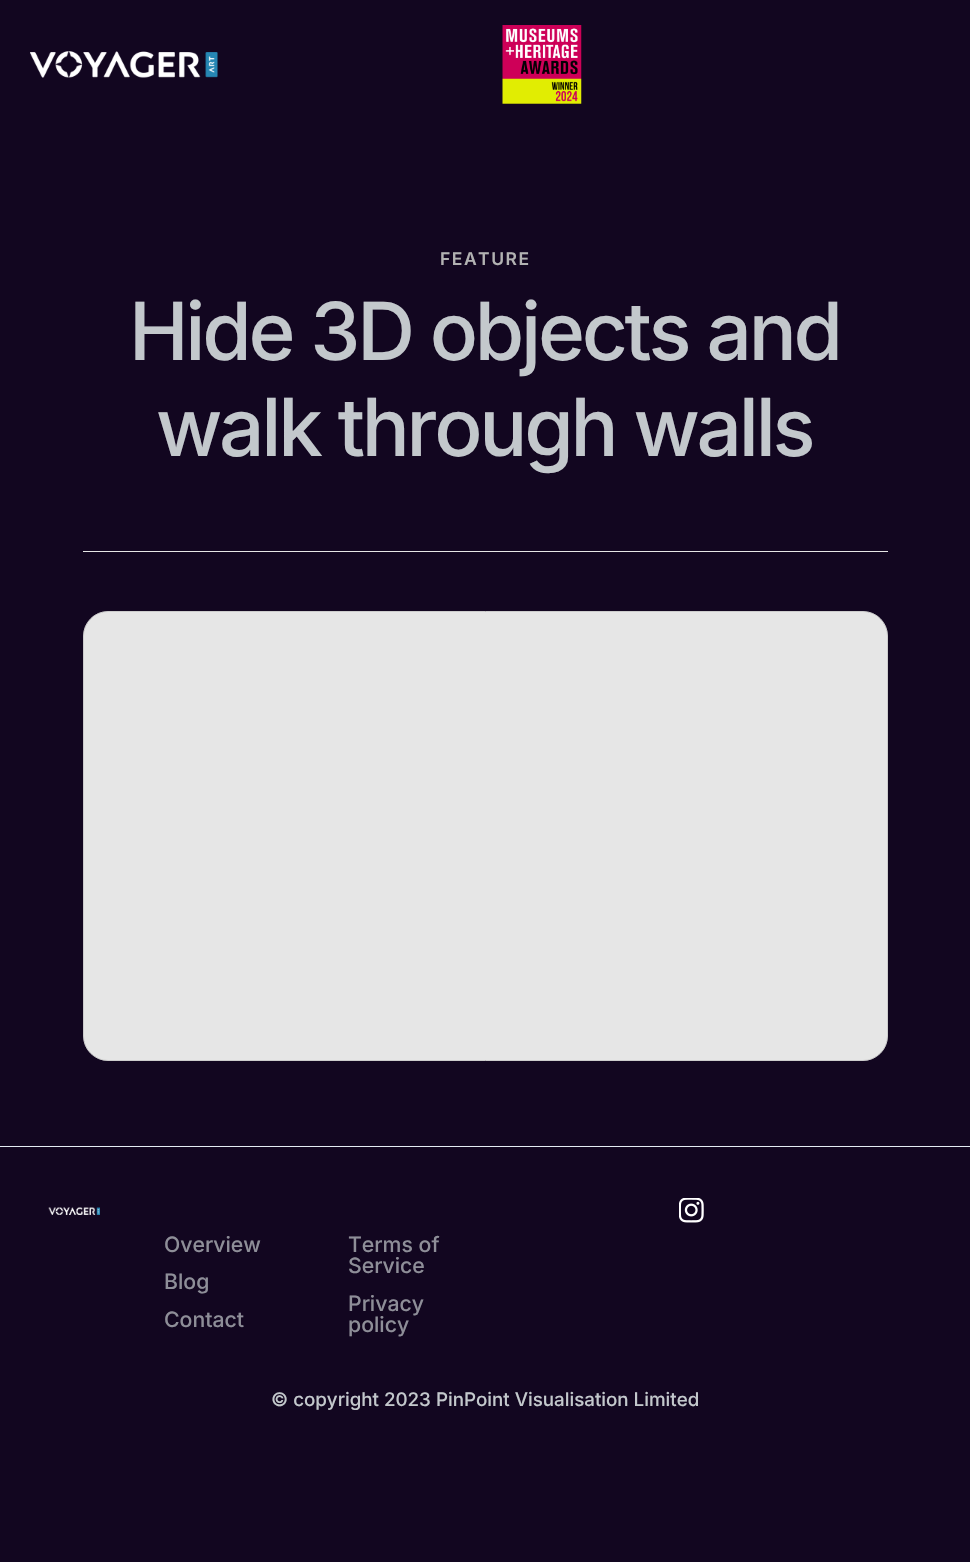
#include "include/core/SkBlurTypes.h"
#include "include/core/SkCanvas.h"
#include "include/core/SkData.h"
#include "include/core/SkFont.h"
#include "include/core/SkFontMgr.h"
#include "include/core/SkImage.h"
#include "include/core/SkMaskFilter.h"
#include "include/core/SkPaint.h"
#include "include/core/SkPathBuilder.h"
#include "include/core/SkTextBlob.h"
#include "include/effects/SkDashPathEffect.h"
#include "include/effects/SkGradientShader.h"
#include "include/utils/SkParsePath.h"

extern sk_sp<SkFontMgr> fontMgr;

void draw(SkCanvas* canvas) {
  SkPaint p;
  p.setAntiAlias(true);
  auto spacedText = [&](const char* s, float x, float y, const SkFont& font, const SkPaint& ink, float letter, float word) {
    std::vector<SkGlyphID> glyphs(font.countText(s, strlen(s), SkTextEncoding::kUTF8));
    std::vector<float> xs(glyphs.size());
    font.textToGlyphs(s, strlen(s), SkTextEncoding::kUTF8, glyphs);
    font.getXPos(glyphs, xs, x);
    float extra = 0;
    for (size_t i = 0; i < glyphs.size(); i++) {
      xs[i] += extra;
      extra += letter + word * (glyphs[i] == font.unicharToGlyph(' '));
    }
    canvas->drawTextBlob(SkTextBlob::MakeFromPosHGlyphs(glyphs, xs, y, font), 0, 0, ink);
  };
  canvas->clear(SkColorSetRGB(18, 6, 32));
  canvas->drawImageRect(SkImages::DeferredFromEncodedData(SkData::MakeFromFileName("images/1.png")), SkRect::MakeLTRB(30, 51, 218, 78), SkSamplingOptions());
  canvas->drawImageRect(SkImages::DeferredFromEncodedData(SkData::MakeFromFileName("images/2.png")), SkRect::MakeLTRB(502, 25, 582, 104), SkSamplingOptions());
  p.setColor(SkColorSetRGB(228, 235, 243));
  canvas->drawRect(SkRect::MakeLTRB(0, 1146, 970, 1147), p);
  p.setColor(SkColorSetRGB(230, 230, 230));
  canvas->drawRect(SkRect::MakeLTRB(83, 551, 888, 552), p);
  canvas->drawRoundRect(SkRect::MakeLTRB(83.5f, 611.5f, 887.5f, 1060.5f), 24.5f, 24.5f, p);
  p.setStyle(SkPaint::kStroke_Style);
  p.setStrokeWidth(1);
  p.setColor(SkColorSetRGB(204, 204, 204));
  canvas->drawRoundRect(SkRect::MakeLTRB(83.5f, 611.5f, 887.5f, 1060.5f), 24.5f, 24.5f, p);
  canvas->drawImageRect(SkImages::DeferredFromEncodedData(SkData::MakeFromFileName("images/3.png")), SkRect::MakeLTRB(48, 1207, 100, 1215), SkSamplingOptions());
  canvas->drawImageRect(SkImages::DeferredFromEncodedData(SkData::MakeFromFileName("images/4.png")), SkRect::MakeLTRB(679, 1198, 704, 1223), SkSamplingOptions());
  SkFont font1(fontMgr->matchFamilyStyle("Inter", SkFontStyle(600, SkFontStyle::kNormal_Width, SkFontStyle::kUpright_Slant)), 17.5f);
  font1.setSubpixel(true);
  p.setStyle(SkPaint::kFill_Style);
  p.setColor(SkColorSetRGB(178, 178, 178));
  spacedText("FEATURE", 440, 265, font1, p, 1.5f, 0);
  SkFont font2(fontMgr->matchFamilyStyle("Inter", SkFontStyle(500, SkFontStyle::kNormal_Width, SkFontStyle::kUpright_Slant)), 80);
  font2.setSubpixel(true);
  p.setColor(SkColorSetRGB(195, 200, 204));
  spacedText("Hide 3D objects and", 129, 360, font2, p, -3.25f, 0);
  spacedText("walk through walls", 156, 456, font2, p, -3.25f, 0);
  SkFont font3(fontMgr->matchFamilyStyle("Inter", SkFontStyle(500, SkFontStyle::kNormal_Width, SkFontStyle::kUpright_Slant)), 21.25f);
  font3.setSubpixel(true);
  p.setColor(SkColorSetRGB(142, 142, 152));
  canvas->drawString("Overview", 164, 1252, font3, p);
  canvas->drawString("Blog", 164, 1289, font3, p);
  canvas->drawString("Contact", 164, 1327, font3, p);
  canvas->drawString("Terms of", 348, 1252, font3, p);
  canvas->drawString("Service", 348, 1273, font3, p);
  canvas->drawString("Privacy", 348, 1311, font3, p);
  canvas->drawString("policy", 348, 1332, font3, p);
  SkFont font4(fontMgr->matchFamilyStyle("Inter", SkFontStyle(500, SkFontStyle::kNormal_Width, SkFontStyle::kUpright_Slant)), 18.75f);
  font4.setSubpixel(true);
  p.setColor(SkColorSetRGB(195, 200, 204));
  canvas->drawString("© copyright 2023 PinPoint Visualisation Limited", 271, 1406, font4, p);
}
